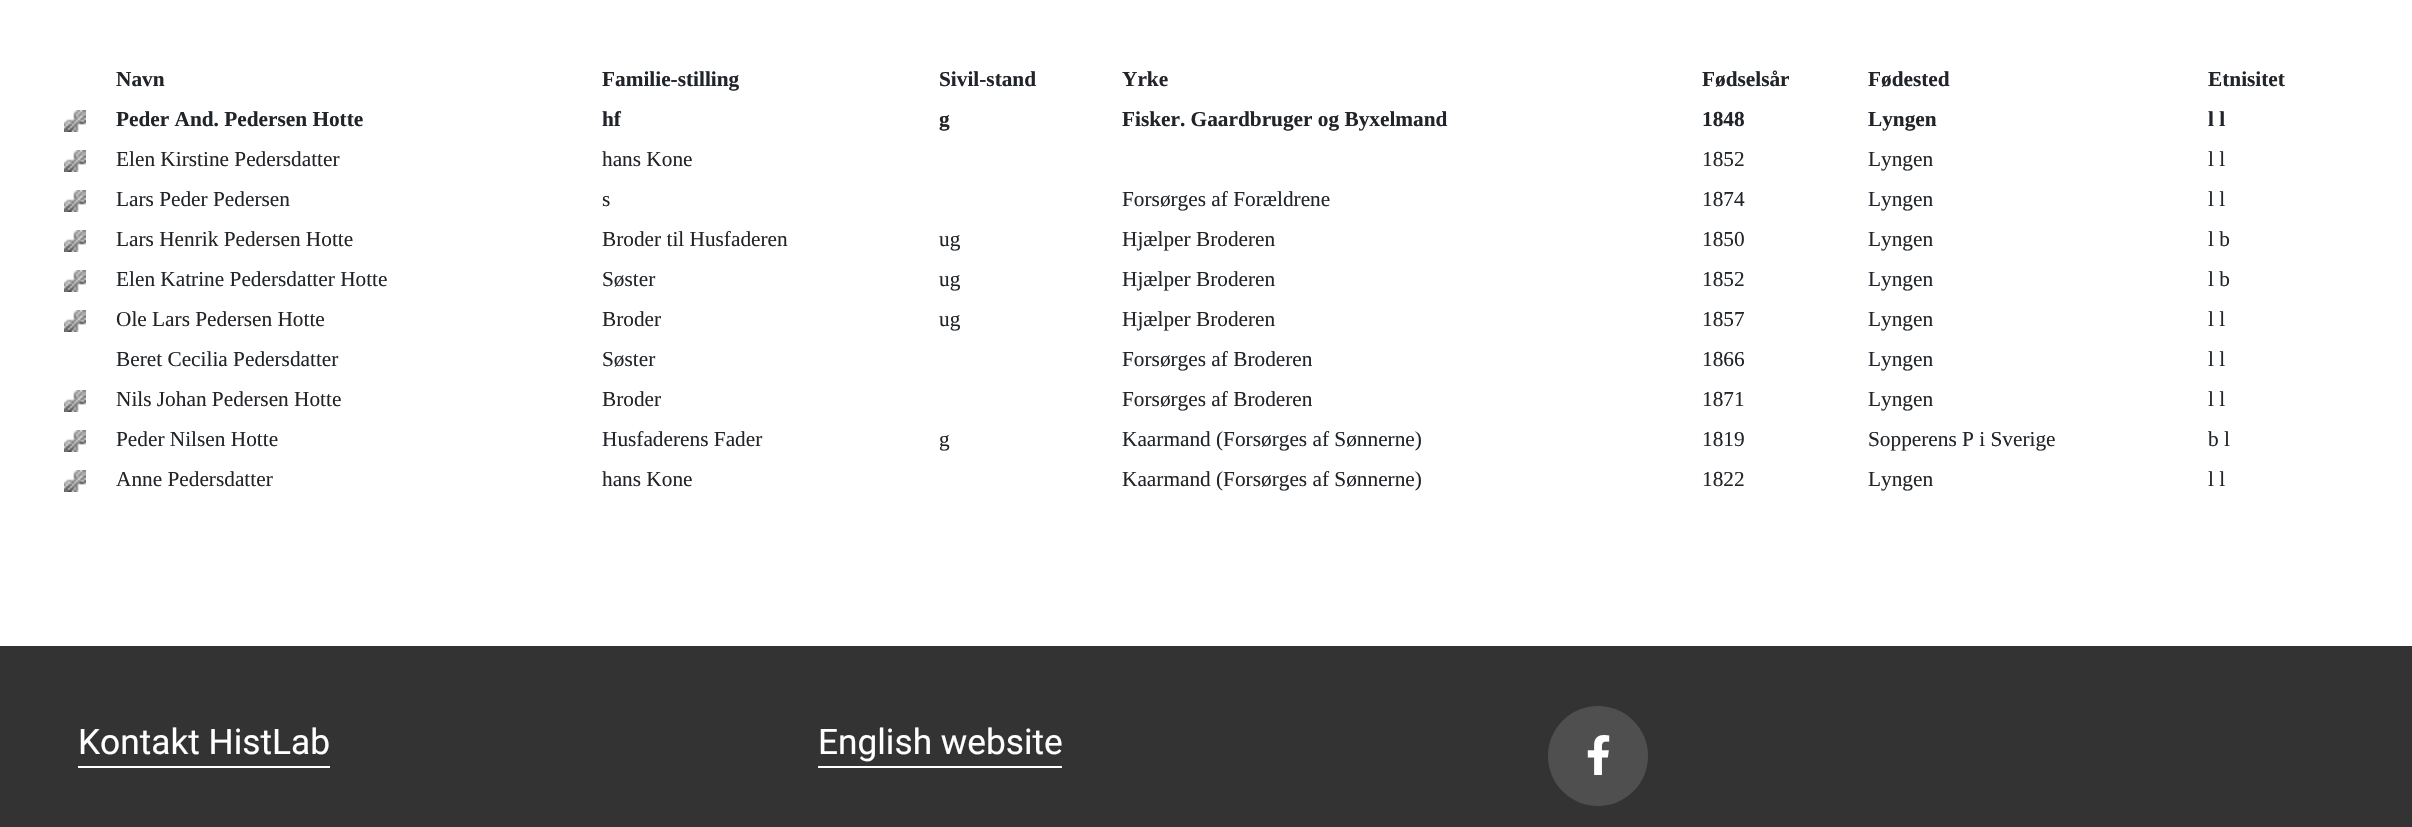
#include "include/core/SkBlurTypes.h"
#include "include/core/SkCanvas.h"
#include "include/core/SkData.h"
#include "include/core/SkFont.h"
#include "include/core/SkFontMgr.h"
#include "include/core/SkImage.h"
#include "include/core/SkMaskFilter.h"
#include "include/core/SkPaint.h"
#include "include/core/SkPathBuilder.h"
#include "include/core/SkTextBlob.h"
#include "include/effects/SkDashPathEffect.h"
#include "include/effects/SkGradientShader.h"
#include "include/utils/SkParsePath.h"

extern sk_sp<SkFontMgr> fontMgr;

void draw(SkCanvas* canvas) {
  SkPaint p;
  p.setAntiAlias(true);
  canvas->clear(SK_ColorWHITE);
  canvas->drawImageRect(SkImages::DeferredFromEncodedData(SkData::MakeFromFileName("images/1.png")), SkRect::MakeLTRB(64, 110, 86, 132), SkSamplingOptions());
  canvas->drawImageRect(SkImages::DeferredFromEncodedData(SkData::MakeFromFileName("images/1.png")), SkRect::MakeLTRB(64, 150, 86, 172), SkSamplingOptions());
  canvas->drawImageRect(SkImages::DeferredFromEncodedData(SkData::MakeFromFileName("images/1.png")), SkRect::MakeLTRB(64, 190, 86, 212), SkSamplingOptions());
  canvas->drawImageRect(SkImages::DeferredFromEncodedData(SkData::MakeFromFileName("images/1.png")), SkRect::MakeLTRB(64, 230, 86, 252), SkSamplingOptions());
  canvas->drawImageRect(SkImages::DeferredFromEncodedData(SkData::MakeFromFileName("images/1.png")), SkRect::MakeLTRB(64, 270, 86, 292), SkSamplingOptions());
  canvas->drawImageRect(SkImages::DeferredFromEncodedData(SkData::MakeFromFileName("images/1.png")), SkRect::MakeLTRB(64, 310, 86, 332), SkSamplingOptions());
  canvas->drawImageRect(SkImages::DeferredFromEncodedData(SkData::MakeFromFileName("images/1.png")), SkRect::MakeLTRB(64, 390, 86, 412), SkSamplingOptions());
  canvas->drawImageRect(SkImages::DeferredFromEncodedData(SkData::MakeFromFileName("images/1.png")), SkRect::MakeLTRB(64, 430, 86, 452), SkSamplingOptions());
  canvas->drawImageRect(SkImages::DeferredFromEncodedData(SkData::MakeFromFileName("images/1.png")), SkRect::MakeLTRB(64, 470, 86, 492), SkSamplingOptions());
  p.setColor(SkColorSetRGB(51, 51, 51));
  canvas->drawRect(SkRect::MakeLTRB(0, 646, 2412, 827), p);
  p.setColor(SK_ColorWHITE);
  canvas->drawRect(SkRect::MakeLTRB(78, 766, 330, 768), p);
  canvas->drawRect(SkRect::MakeLTRB(818, 766, 1062, 768), p);
  p.setColor(SkColorSetRGB(79, 79, 79));
  canvas->drawCircle(1598, 756, 50, p);
  canvas->drawImageRect(SkImages::DeferredFromEncodedData(SkData::MakeFromFileName("images/2.png")), SkRect::MakeLTRB(1587, 735, 1610, 775), SkSamplingOptions());
  SkFont font1(fontMgr->matchFamilyStyle("Liberation Serif", SkFontStyle::Bold()), 21.3f);
  font1.setSubpixel(true);
  p.setColor(SkColorSetRGB(33, 37, 41));
  canvas->drawString("Navn", 116, 86, font1, p);
  canvas->drawString("Familie-stilling", 602, 86, font1, p);
  canvas->drawString("Sivil-stand", 939, 86, font1, p);
  canvas->drawString("Yrke", 1122, 86, font1, p);
  canvas->drawString("Fødselsår", 1702, 86, font1, p);
  canvas->drawString("Fødested", 1868, 86, font1, p);
  canvas->drawString("Etnisitet", 2208, 86, font1, p);
  canvas->drawString("Peder And. Pedersen Hotte", 116, 126, font1, p);
  canvas->drawString("hf", 602, 126, font1, p);
  canvas->drawString("g", 939, 126, font1, p);
  canvas->drawString("Fisker. Gaardbruger og Byxelmand", 1122, 126, font1, p);
  canvas->drawString("1848", 1702, 126, font1, p);
  canvas->drawString("Lyngen", 1868, 126, font1, p);
  canvas->drawString("l l", 2208, 126, font1, p);
  SkFont font2(fontMgr->matchFamilyStyle("Liberation Serif", SkFontStyle::Normal()), 21.3f);
  font2.setSubpixel(true);
  canvas->drawString("Elen Kirstine Pedersdatter", 116, 166, font2, p);
  canvas->drawString("hans Kone", 602, 166, font2, p);
  canvas->drawString("1852", 1702, 166, font2, p);
  canvas->drawString("Lyngen", 1868, 166, font2, p);
  canvas->drawString("l l", 2208, 166, font2, p);
  canvas->drawString("Lars Peder Pedersen", 116, 206, font2, p);
  canvas->drawString("s", 602, 206, font2, p);
  canvas->drawString("Forsørges af Forældrene", 1122, 206, font2, p);
  canvas->drawString("1874", 1702, 206, font2, p);
  canvas->drawString("Lyngen", 1868, 206, font2, p);
  canvas->drawString("l l", 2208, 206, font2, p);
  canvas->drawString("Lars Henrik Pedersen Hotte", 116, 246, font2, p);
  canvas->drawString("Broder til Husfaderen", 602, 246, font2, p);
  canvas->drawString("ug", 939, 246, font2, p);
  canvas->drawString("Hjælper Broderen", 1122, 246, font2, p);
  canvas->drawString("1850", 1702, 246, font2, p);
  canvas->drawString("Lyngen", 1868, 246, font2, p);
  canvas->drawString("l b", 2208, 246, font2, p);
  canvas->drawString("Elen Katrine Pedersdatter Hotte", 116, 286, font2, p);
  canvas->drawString("Søster", 602, 286, font2, p);
  canvas->drawString("ug", 939, 286, font2, p);
  canvas->drawString("Hjælper Broderen", 1122, 286, font2, p);
  canvas->drawString("1852", 1702, 286, font2, p);
  canvas->drawString("Lyngen", 1868, 286, font2, p);
  canvas->drawString("l b", 2208, 286, font2, p);
  canvas->drawString("Ole Lars Pedersen Hotte", 116, 326, font2, p);
  canvas->drawString("Broder", 602, 326, font2, p);
  canvas->drawString("ug", 939, 326, font2, p);
  canvas->drawString("Hjælper Broderen", 1122, 326, font2, p);
  canvas->drawString("1857", 1702, 326, font2, p);
  canvas->drawString("Lyngen", 1868, 326, font2, p);
  canvas->drawString("l l", 2208, 326, font2, p);
  canvas->drawString("Beret Cecilia Pedersdatter", 116, 366, font2, p);
  canvas->drawString("Søster", 602, 366, font2, p);
  canvas->drawString("Forsørges af Broderen", 1122, 366, font2, p);
  canvas->drawString("1866", 1702, 366, font2, p);
  canvas->drawString("Lyngen", 1868, 366, font2, p);
  canvas->drawString("l l", 2208, 366, font2, p);
  canvas->drawString("Nils Johan Pedersen Hotte", 116, 406, font2, p);
  canvas->drawString("Broder", 602, 406, font2, p);
  canvas->drawString("Forsørges af Broderen", 1122, 406, font2, p);
  canvas->drawString("1871", 1702, 406, font2, p);
  canvas->drawString("Lyngen", 1868, 406, font2, p);
  canvas->drawString("l l", 2208, 406, font2, p);
  canvas->drawString("Peder Nilsen Hotte", 116, 446, font2, p);
  canvas->drawString("Husfaderens Fader", 602, 446, font2, p);
  canvas->drawString("g", 939, 446, font2, p);
  canvas->drawString("Kaarmand (Forsørges af Sønnerne)", 1122, 446, font2, p);
  canvas->drawString("1819", 1702, 446, font2, p);
  canvas->drawString("Sopperens P i Sverige", 1868, 446, font2, p);
  canvas->drawString("b l", 2208, 446, font2, p);
  canvas->drawString("Anne Pedersdatter", 116, 486, font2, p);
  canvas->drawString("hans Kone", 602, 486, font2, p);
  canvas->drawString("Kaarmand (Forsørges af Sønnerne)", 1122, 486, font2, p);
  canvas->drawString("1822", 1702, 486, font2, p);
  canvas->drawString("Lyngen", 1868, 486, font2, p);
  canvas->drawString("l l", 2208, 486, font2, p);
  SkFont font3(fontMgr->matchFamilyStyle("Roboto", SkFontStyle::Normal()), 35.25f);
  font3.setSubpixel(true);
  p.setColor(SK_ColorWHITE);
  canvas->drawString("Kontakt HistLab", 78, 754, font3, p);
  canvas->drawString("English website", 818, 754, font3, p);
}
